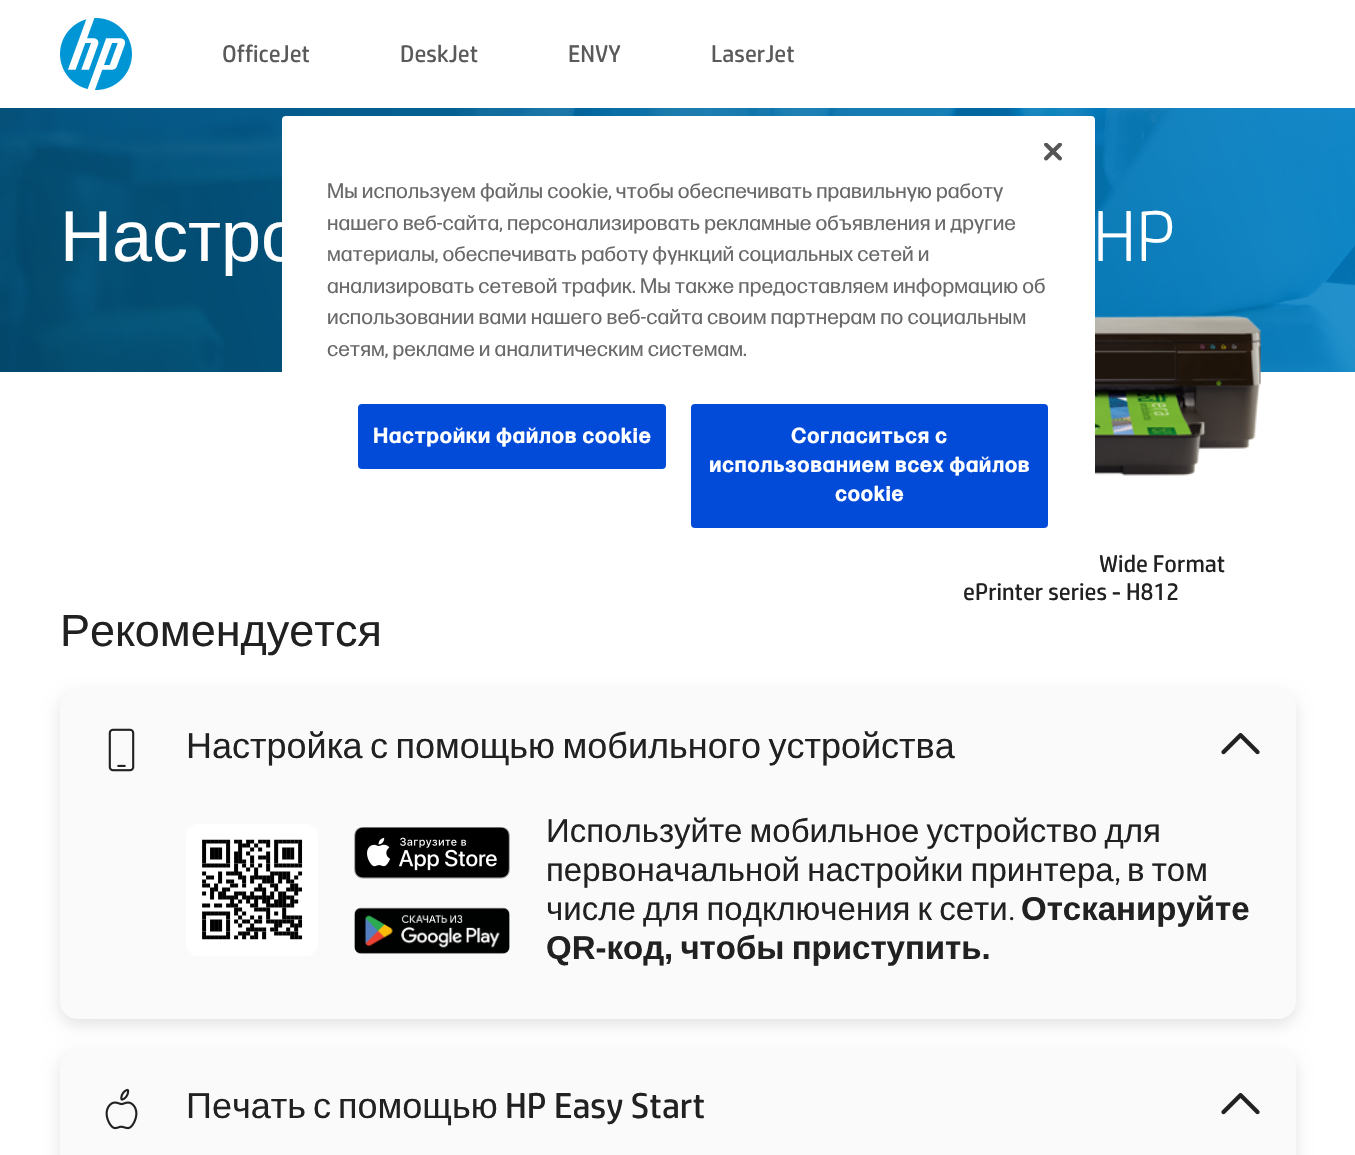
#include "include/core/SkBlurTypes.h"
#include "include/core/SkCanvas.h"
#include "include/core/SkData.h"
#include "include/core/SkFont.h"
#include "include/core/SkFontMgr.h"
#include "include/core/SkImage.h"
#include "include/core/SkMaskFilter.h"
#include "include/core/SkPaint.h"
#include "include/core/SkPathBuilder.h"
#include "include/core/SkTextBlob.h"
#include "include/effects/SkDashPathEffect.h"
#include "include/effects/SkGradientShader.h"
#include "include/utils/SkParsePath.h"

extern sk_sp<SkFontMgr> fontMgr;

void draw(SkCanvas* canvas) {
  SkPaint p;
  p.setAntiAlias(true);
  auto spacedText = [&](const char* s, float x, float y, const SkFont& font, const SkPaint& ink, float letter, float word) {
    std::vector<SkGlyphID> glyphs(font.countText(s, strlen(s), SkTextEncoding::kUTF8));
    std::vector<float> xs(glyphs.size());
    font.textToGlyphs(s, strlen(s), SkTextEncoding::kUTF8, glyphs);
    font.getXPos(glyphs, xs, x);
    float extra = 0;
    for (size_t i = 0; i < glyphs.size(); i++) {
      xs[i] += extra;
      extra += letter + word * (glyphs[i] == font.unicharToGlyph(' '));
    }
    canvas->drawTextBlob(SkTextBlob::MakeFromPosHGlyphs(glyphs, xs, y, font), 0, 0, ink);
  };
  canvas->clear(SK_ColorWHITE);
  canvas->drawImageRect(SkImages::DeferredFromEncodedData(SkData::MakeFromFileName("images/1.png")), SkRect::MakeLTRB(60, 18, 132, 90), SkSamplingOptions());
  canvas->drawImageRect(SkImages::DeferredFromEncodedData(SkData::MakeFromFileName("images/3.png")), SkRect::MakeLTRB(0, 108, 1355, 372), SkSamplingOptions());
  p.setColor(SK_ColorWHITE);
  canvas->drawRoundRect(SkRect::MakeLTRB(282, 116, 1095, 576), 4, 4, p);
  canvas->drawImageRect(SkImages::DeferredFromEncodedData(SkData::MakeFromFileName("images/2.png")), SkRect::MakeLTRB(1044, 143, 1062, 161), SkSamplingOptions());
  p.setColor(SkColorSetRGB(2, 74, 216));
  canvas->drawRoundRect(SkRect::MakeLTRB(357, 403, 667, 470), 5, 5, p);
  p.setStyle(SkPaint::kStroke_Style);
  p.setStrokeWidth(2);
  p.setColor(SK_ColorWHITE);
  canvas->drawRoundRect(SkRect::MakeLTRB(357, 403, 667, 470), 5, 5, p);
  p.setStyle(SkPaint::kFill_Style);
  p.setColor(SkColorSetRGB(2, 74, 216));
  canvas->drawRoundRect(SkRect::MakeLTRB(690, 403, 1049, 529), 5, 5, p);
  p.setStyle(SkPaint::kStroke_Style);
  p.setColor(SK_ColorWHITE);
  canvas->drawRoundRect(SkRect::MakeLTRB(690, 403, 1049, 529), 5, 5, p);
  canvas->drawImageRect(SkImages::DeferredFromEncodedData(SkData::MakeFromFileName("images/4.png")), SkRect::MakeLTRB(1095, 315, 1261, 476), SkSamplingOptions());
  p.setStyle(SkPaint::kFill_Style);
  p.setColor(SkColorSetARGB(28, 0, 0, 0));
  p.setMaskFilter(SkMaskFilter::MakeBlur(kNormal_SkBlurStyle, 8));
  canvas->drawRoundRect(SkRect::MakeLTRB(60, 695, 1296, 1025), 18, 18, p);
  p.setMaskFilter(nullptr);
  p.setColor(SkColorSetRGB(250, 250, 250));
  canvas->drawRoundRect(SkRect::MakeLTRB(60, 689, 1296, 1019), 18, 18, p);
  canvas->drawImageRect(SkImages::DeferredFromEncodedData(SkData::MakeFromFileName("images/5.png")), SkRect::MakeLTRB(108, 728, 135, 772), SkSamplingOptions());
  canvas->drawImageRect(SkImages::DeferredFromEncodedData(SkData::MakeFromFileName("images/6.png")), SkRect::MakeLTRB(1221, 733, 1260, 755), SkSamplingOptions());
  p.setColor(SK_ColorWHITE);
  canvas->drawRoundRect(SkRect::MakeLTRB(186, 824, 318, 956), 12, 12, p);
  canvas->drawImageRect(SkImages::DeferredFromEncodedData(SkData::MakeFromFileName("images/7.png")), SkRect::MakeLTRB(202, 839, 303, 940), SkSamplingOptions());
  canvas->drawImageRect(SkImages::DeferredFromEncodedData(SkData::MakeFromFileName("images/8.png")), SkRect::MakeLTRB(354, 827, 510, 879), SkSamplingOptions());
  canvas->drawImageRect(SkImages::DeferredFromEncodedData(SkData::MakeFromFileName("images/9.png")), SkRect::MakeLTRB(354, 907, 510, 954), SkSamplingOptions());
  p.setColor(SkColorSetARGB(28, 0, 0, 0));
  p.setMaskFilter(SkMaskFilter::MakeBlur(kNormal_SkBlurStyle, 8));
  canvas->drawRoundRect(SkRect::MakeLTRB(60, 1055, 1296, 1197), 18, 18, p);
  p.setMaskFilter(nullptr);
  p.setColor(SkColorSetRGB(250, 250, 250));
  canvas->drawRoundRect(SkRect::MakeLTRB(60, 1049, 1296, 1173), 18, 18, p);
  canvas->drawImageRect(SkImages::DeferredFromEncodedData(SkData::MakeFromFileName("images/10.png")), SkRect::MakeLTRB(105, 1088, 138, 1130), SkSamplingOptions());
  canvas->drawImageRect(SkImages::DeferredFromEncodedData(SkData::MakeFromFileName("images/6.png")), SkRect::MakeLTRB(1221, 1093, 1260, 1115), SkSamplingOptions());
  SkFont font1(fontMgr->matchFamilyStyle("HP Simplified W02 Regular", SkFontStyle::Normal()), 24);
  font1.setSubpixel(true);
  p.setColor(SkColorSetRGB(90, 90, 90));
  canvas->drawString("OfficeJet", 222, 62, font1, p);
  canvas->drawString("DeskJet", 400, 62, font1, p);
  canvas->drawString("ENVY", 568, 62, font1, p);
  canvas->drawString("LaserJet", 711, 62, font1, p);
  SkFont font2(fontMgr->matchFamilyStyle("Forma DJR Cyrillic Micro", SkFontStyle::Normal()), 21);
  font2.setSubpixel(true);
  p.setColor(SkColorSetRGB(105, 105, 105));
  canvas->drawString("Мы используем файлы cookie, чтобы обеспечивать правильную работу", 327, 198, font2, p);
  canvas->drawString("нашего веб-сайта, персонализировать рекламные объявления и другие", 327, 230, font2, p);
  canvas->drawString("материалы, обеспечивать работу функций социальных сетей и", 327, 261, font2, p);
  canvas->drawString("анализировать сетевой трафик. Мы также предоставляем информацию об", 327, 293, font2, p);
  canvas->drawString("использовании вами нашего веб-сайта своим партнерам по социальным", 327, 324, font2, p);
  canvas->drawString("сетям, рекламе и аналитическим системам.", 327, 356, font2, p);
  SkFont font3(fontMgr->matchFamilyStyle("Forma DJR Cyrillic Micro", SkFontStyle::Bold()), 21);
  font3.setSubpixel(true);
  p.setColor(SK_ColorWHITE);
  spacedText("Настройки файлов cookie", 373, 443, font3, p, 1.05f, 0);
  spacedText("Согласиться с", 791, 443, font3, p, 1.05f, 0);
  spacedText("использованием всех файлов", 709, 472, font3, p, 1.05f, 0);
  spacedText("cookie", 835, 501, font3, p, 1.05f, 0);
  SkFont font4(fontMgr->matchFamilyStyle("Liberation Sans", SkFontStyle::Normal()), 72);
  font4.setSubpixel(true);
  spacedText("Настро", 60, 261, font4, p, 0, -4);
  SkFont font5(fontMgr->matchFamilyStyle("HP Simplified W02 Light", SkFontStyle(300, SkFontStyle::kNormal_Width, SkFontStyle::kUpright_Slant)), 72);
  font5.setSubpixel(true);
  canvas->drawString("HP", 1093, 261, font5, p);
  p.setColor(SkColorSetRGB(33, 33, 33));
  canvas->drawString("Wide Format", 1099, 572, font1, p);
  canvas->drawString("ePrinter series - H812", 963, 600, font1, p);
  SkFont font6(fontMgr->matchFamilyStyle("Liberation Sans", SkFontStyle::Normal()), 45);
  font6.setSubpixel(true);
  canvas->drawString("Рекомендуется", 60, 646, font6, p);
  SkFont font7(fontMgr->matchFamilyStyle("Liberation Sans", SkFontStyle::Normal()), 36);
  font7.setSubpixel(true);
  spacedText("Настройка с помощью мобильного устройства", 186, 758, font7, p, 0, -2.5f);
  SkFont font8(fontMgr->matchFamilyStyle("Liberation Sans", SkFontStyle::Normal()), 33);
  font8.setSubpixel(true);
  spacedText("Используйте мобильное устройство для", 546, 842, font8, p, 0, -2);
  spacedText("первоначальной настройки принтера", 546, 881, font8, p, 0, -2);
  SkFont font9(fontMgr->matchFamilyStyle("HP Simplified W02 Light", SkFontStyle(300, SkFontStyle::kNormal_Width, SkFontStyle::kUpright_Slant)), 33);
  font9.setSubpixel(true);
  canvas->drawString(",", 1114, 881, font9, p);
  spacedText("в том", 1127, 881, font8, p, 0, -2);
  spacedText("числе для подключения к сети", 546, 920, font8, p, 0, -2);
  canvas->drawString(".", 1008, 920, font9, p);
  SkFont font10(fontMgr->matchFamilyStyle("Liberation Sans", SkFontStyle::Bold()), 33);
  font10.setSubpixel(true);
  canvas->drawString("Отсканируйте", 1021, 920, font10, p);
  spacedText("QR-код, чтобы приступить.", 546, 959, font10, p, 0, -2);
  canvas->drawString("Печать", 186, 1118, font7, p);
  canvas->drawString("с", 313, 1118, font7, p);
  canvas->drawString("помощью", 338, 1118, font7, p);
  SkFont font11(fontMgr->matchFamilyStyle("HP Simplified W02 Regular", SkFontStyle::Normal()), 36);
  font11.setSubpixel(true);
  canvas->drawString("HP Easy Start", 505, 1118, font11, p);
}
